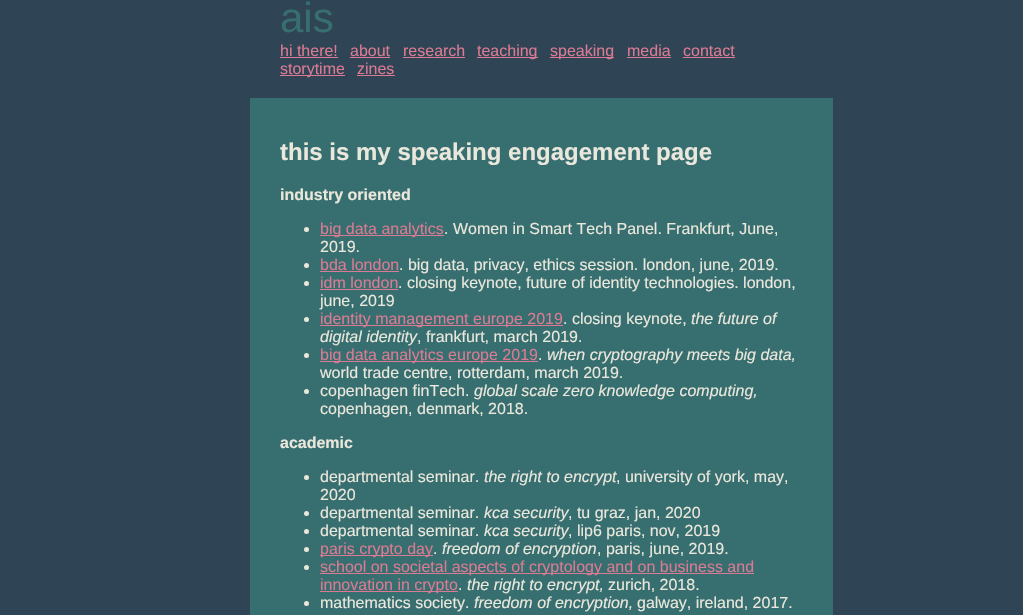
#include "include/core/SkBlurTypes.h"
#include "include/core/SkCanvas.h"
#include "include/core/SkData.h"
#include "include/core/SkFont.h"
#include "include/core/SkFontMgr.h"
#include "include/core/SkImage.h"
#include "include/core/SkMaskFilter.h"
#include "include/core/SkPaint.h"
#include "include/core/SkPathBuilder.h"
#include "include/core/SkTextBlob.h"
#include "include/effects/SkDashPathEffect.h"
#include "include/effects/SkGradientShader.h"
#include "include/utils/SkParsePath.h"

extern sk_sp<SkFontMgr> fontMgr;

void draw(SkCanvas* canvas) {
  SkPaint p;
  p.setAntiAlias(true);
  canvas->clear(SkColorSetRGB(47, 68, 84));
  p.setColor(SkColorSetRGB(218, 123, 147));
  canvas->drawRect(SkRect::MakeLTRB(280, 57, 338, 58), p);
  canvas->drawRect(SkRect::MakeLTRB(350, 57, 390, 58), p);
  canvas->drawRect(SkRect::MakeLTRB(403, 57, 465, 58), p);
  canvas->drawRect(SkRect::MakeLTRB(477, 57, 538, 58), p);
  canvas->drawRect(SkRect::MakeLTRB(550, 57, 614, 58), p);
  canvas->drawRect(SkRect::MakeLTRB(627, 57, 671, 58), p);
  canvas->drawRect(SkRect::MakeLTRB(683, 57, 735, 58), p);
  canvas->drawRect(SkRect::MakeLTRB(280, 75, 345, 76), p);
  canvas->drawRect(SkRect::MakeLTRB(357, 75, 395, 76), p);
  p.setColor(SkColorSetRGB(55, 110, 111));
  canvas->drawRect(SkRect::MakeLTRB(250, 98, 833, 615), p);
  p.setColor(SkColorSetRGB(234, 231, 220));
  canvas->drawCircle(306.5f, 229.5f, 2.5f, p);
  p.setColor(SkColorSetRGB(218, 123, 147));
  canvas->drawRect(SkRect::MakeLTRB(320, 235, 444, 236), p);
  p.setColor(SkColorSetRGB(234, 231, 220));
  canvas->drawCircle(306.5f, 265.5f, 2.5f, p);
  p.setColor(SkColorSetRGB(218, 123, 147));
  canvas->drawRect(SkRect::MakeLTRB(320, 271, 399, 272), p);
  p.setColor(SkColorSetRGB(234, 231, 220));
  canvas->drawCircle(306.5f, 283.5f, 2.5f, p);
  p.setColor(SkColorSetRGB(218, 123, 147));
  canvas->drawRect(SkRect::MakeLTRB(320, 289, 398, 290), p);
  p.setColor(SkColorSetRGB(234, 231, 220));
  canvas->drawCircle(306.5f, 319.5f, 2.5f, p);
  p.setColor(SkColorSetRGB(218, 123, 147));
  canvas->drawRect(SkRect::MakeLTRB(320, 325, 563, 326), p);
  p.setColor(SkColorSetRGB(234, 231, 220));
  canvas->drawCircle(306.5f, 355.5f, 2.5f, p);
  p.setColor(SkColorSetRGB(218, 123, 147));
  canvas->drawRect(SkRect::MakeLTRB(320, 361, 538, 362), p);
  p.setColor(SkColorSetRGB(234, 231, 220));
  canvas->drawCircle(306.5f, 391.5f, 2.5f, p);
  canvas->drawCircle(306.5f, 477.5f, 2.5f, p);
  canvas->drawCircle(306.5f, 513.5f, 2.5f, p);
  canvas->drawCircle(306.5f, 531.5f, 2.5f, p);
  canvas->drawCircle(306.5f, 549.5f, 2.5f, p);
  p.setColor(SkColorSetRGB(218, 123, 147));
  canvas->drawRect(SkRect::MakeLTRB(320, 555, 433, 556), p);
  p.setColor(SkColorSetRGB(234, 231, 220));
  canvas->drawCircle(306.5f, 567.5f, 2.5f, p);
  p.setColor(SkColorSetRGB(218, 123, 147));
  canvas->drawRect(SkRect::MakeLTRB(320, 573, 754, 574), p);
  canvas->drawRect(SkRect::MakeLTRB(320, 591, 458, 592), p);
  p.setColor(SkColorSetRGB(234, 231, 220));
  canvas->drawCircle(306.5f, 603.5f, 2.5f, p);
  SkFont font1(fontMgr->matchFamilyStyle("Liberation Sans", SkFontStyle::Normal()), 42);
  font1.setSubpixel(true);
  p.setColor(SkColorSetRGB(55, 110, 111));
  canvas->drawString("ais", 280, 32, font1, p);
  SkFont font2(fontMgr->matchFamilyStyle("Liberation Sans", SkFontStyle::Normal()), 16);
  font2.setSubpixel(true);
  p.setColor(SkColorSetRGB(218, 123, 147));
  canvas->drawString("hi there!", 280, 56, font2, p);
  canvas->drawString("about", 350, 56, font2, p);
  canvas->drawString("research", 403, 56, font2, p);
  canvas->drawString("teaching", 477, 56, font2, p);
  canvas->drawString("speaking", 550, 56, font2, p);
  canvas->drawString("media", 627, 56, font2, p);
  canvas->drawString("contact", 683, 56, font2, p);
  canvas->drawString("storytime", 280, 74, font2, p);
  canvas->drawString("zines", 357, 74, font2, p);
  SkFont font3(fontMgr->matchFamilyStyle("Liberation Sans", SkFontStyle::Bold()), 24);
  font3.setSubpixel(true);
  p.setColor(SkColorSetRGB(234, 231, 220));
  canvas->drawString("this is my speaking engagement page", 280, 160, font3, p);
  SkFont font4(fontMgr->matchFamilyStyle("Liberation Sans", SkFontStyle::Bold()), 16);
  font4.setSubpixel(true);
  canvas->drawString("industry oriented", 280, 200, font4, p);
  p.setColor(SkColorSetRGB(218, 123, 147));
  canvas->drawString("big data analytics", 320, 234, font2, p);
  p.setColor(SkColorSetRGB(234, 231, 220));
  canvas->drawString(". Women in Smart Tech Panel. Frankfurt, June,", 444, 234, font2, p);
  canvas->drawString("2019.", 320, 252, font2, p);
  p.setColor(SkColorSetRGB(218, 123, 147));
  canvas->drawString("bda london", 320, 270, font2, p);
  p.setColor(SkColorSetRGB(234, 231, 220));
  canvas->drawString(". big data, privacy, ethics session. london, june, 2019.", 399, 270, font2, p);
  p.setColor(SkColorSetRGB(218, 123, 147));
  canvas->drawString("idm london", 320, 288, font2, p);
  p.setColor(SkColorSetRGB(234, 231, 220));
  canvas->drawString(". closing keynote, future of identity technologies. london,", 398, 288, font2, p);
  canvas->drawString("june, 2019", 320, 306, font2, p);
  p.setColor(SkColorSetRGB(218, 123, 147));
  canvas->drawString("identity management europe 2019", 320, 324, font2, p);
  p.setColor(SkColorSetRGB(234, 231, 220));
  canvas->drawString(". closing keynote,", 563, 324, font2, p);
  SkFont font5(fontMgr->matchFamilyStyle("Liberation Sans", SkFontStyle::Italic()), 16);
  font5.setSubpixel(true);
  canvas->drawString("the future of", 691, 324, font5, p);
  canvas->drawString("digital identity", 320, 342, font5, p);
  canvas->drawString(", frankfurt, march 2019.", 417, 342, font2, p);
  p.setColor(SkColorSetRGB(218, 123, 147));
  canvas->drawString("big data analytics europe 2019", 320, 360, font2, p);
  p.setColor(SkColorSetRGB(234, 231, 220));
  canvas->drawString("when cryptography meets big data,", 547, 360, font5, p);
  canvas->drawString(".", 538, 360, font2, p);
  canvas->drawString("world trade centre, rotterdam, march 2019.", 320, 378, font2, p);
  canvas->drawString("copenhagen finTech.", 320, 396, font2, p);
  canvas->drawString("global scale zero knowledge computing,", 474, 396, font5, p);
  canvas->drawString("copenhagen, denmark, 2018.", 320, 414, font2, p);
  canvas->drawString("academic", 280, 448, font4, p);
  canvas->drawString("departmental seminar.", 320, 482, font2, p);
  canvas->drawString("the right to encrypt", 484, 482, font5, p);
  canvas->drawString(", university of york, may,", 616, 482, font2, p);
  canvas->drawString("2020", 320, 500, font2, p);
  canvas->drawString("departmental seminar.", 320, 518, font2, p);
  canvas->drawString("kca security", 484, 518, font5, p);
  canvas->drawString(", tu graz, jan, 2020", 568, 518, font2, p);
  canvas->drawString("departmental seminar.", 320, 536, font2, p);
  canvas->drawString("kca security", 484, 536, font5, p);
  canvas->drawString(", lip6 paris, nov, 2019", 568, 536, font2, p);
  p.setColor(SkColorSetRGB(218, 123, 147));
  canvas->drawString("paris crypto day", 320, 554, font2, p);
  p.setColor(SkColorSetRGB(234, 231, 220));
  canvas->drawString("freedom of encryption", 442, 554, font5, p);
  canvas->drawString(", paris, june, 2019.", 597, 554, font2, p);
  canvas->drawString(".", 433, 554, font2, p);
  p.setColor(SkColorSetRGB(218, 123, 147));
  canvas->drawString("school on societal aspects of cryptology and on business and", 320, 572, font2, p);
  canvas->drawString("innovation in crypto", 320, 590, font2, p);
  p.setColor(SkColorSetRGB(234, 231, 220));
  canvas->drawString(".", 458, 590, font2, p);
  canvas->drawString("the right to encrypt,", 467, 590, font5, p);
  canvas->drawString("zurich, 2018.", 608, 590, font2, p);
  canvas->drawString("mathematics society.", 320, 608, font2, p);
  canvas->drawString("freedom of encryption,", 474, 608, font5, p);
  canvas->drawString("galway, ireland, 2017.", 637, 608, font2, p);
}
